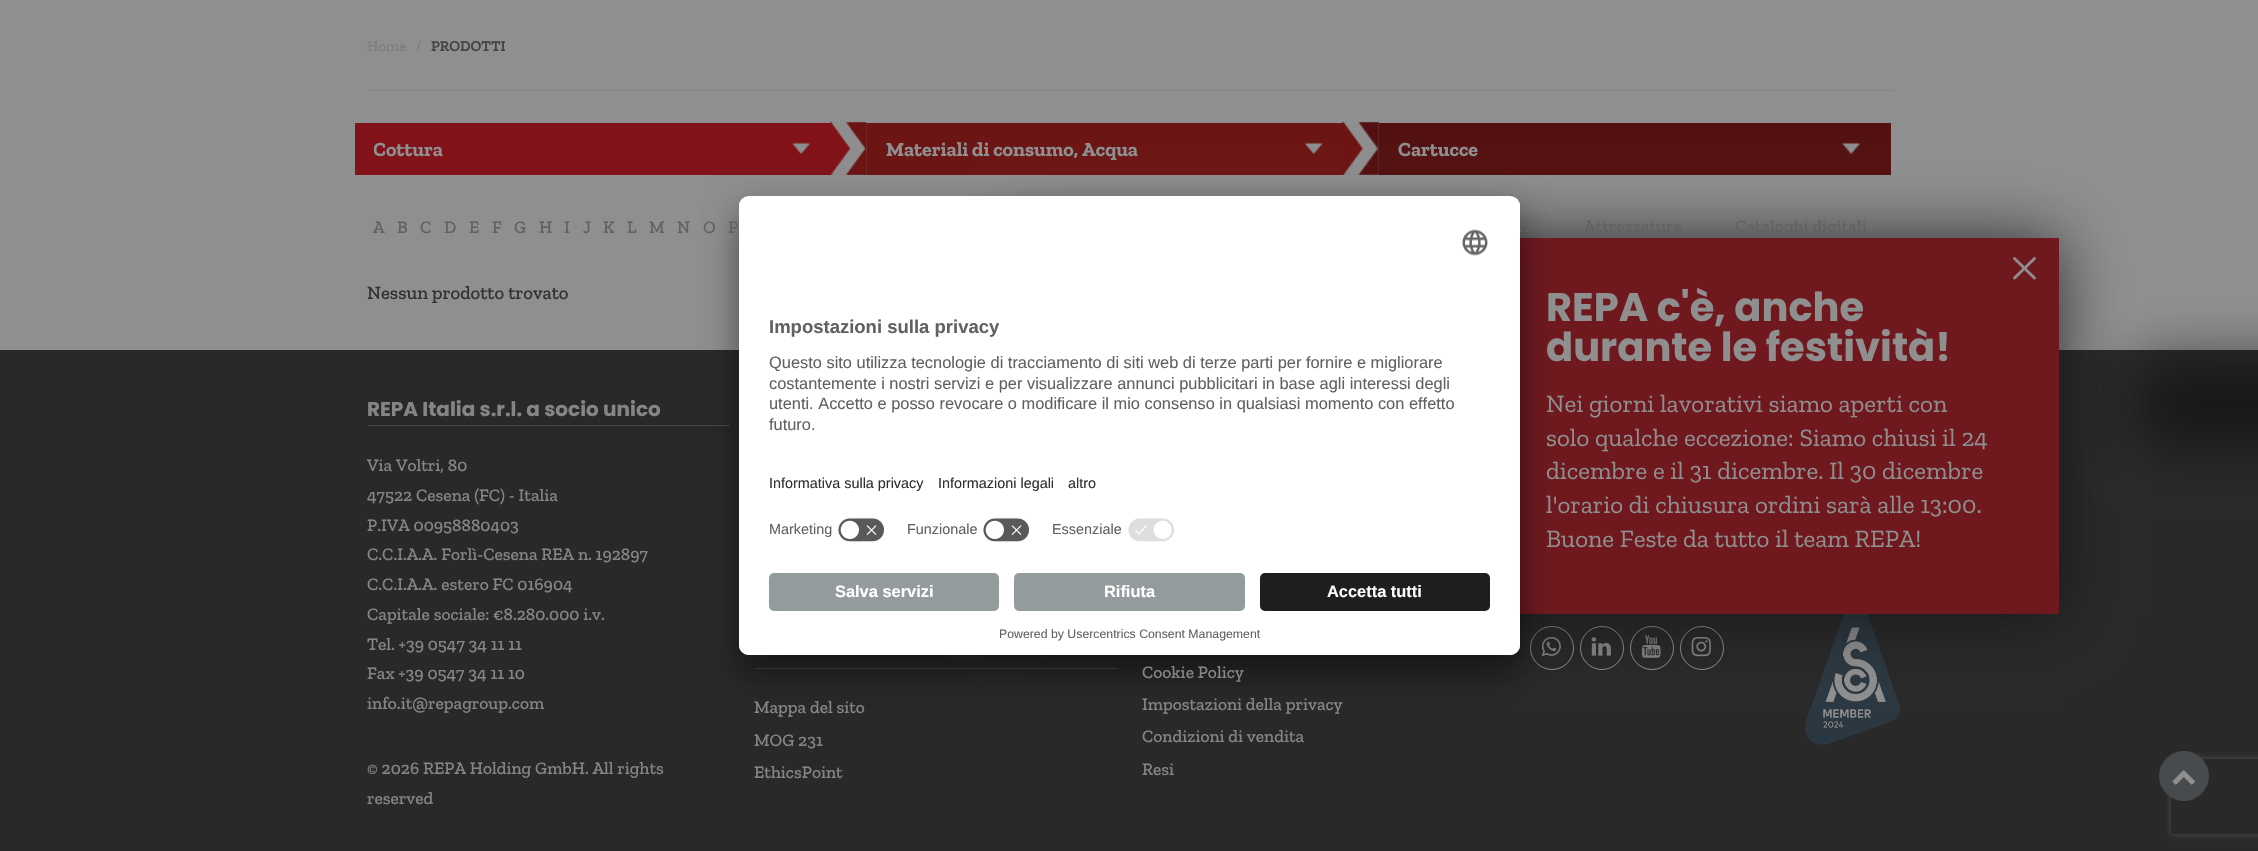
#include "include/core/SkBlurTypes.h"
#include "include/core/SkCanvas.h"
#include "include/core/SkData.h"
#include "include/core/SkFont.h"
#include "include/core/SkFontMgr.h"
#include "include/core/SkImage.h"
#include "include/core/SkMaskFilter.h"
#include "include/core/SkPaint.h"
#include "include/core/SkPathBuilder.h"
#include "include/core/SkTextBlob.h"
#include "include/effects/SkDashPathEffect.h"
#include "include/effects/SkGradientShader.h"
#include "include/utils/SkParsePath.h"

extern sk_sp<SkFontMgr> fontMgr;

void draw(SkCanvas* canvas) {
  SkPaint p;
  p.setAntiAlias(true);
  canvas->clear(SkColorSetRGB(143, 143, 143));
  p.setColor(SkColorSetRGB(131, 131, 131));
  canvas->drawRect(SkRect::MakeLTRB(368, 90, 1893, 91), p);
  p.setColor(SkColorSetRGB(129, 18, 25));
  canvas->drawRect(SkRect::MakeLTRB(355, 123, 866, 175), p);
  canvas->drawImageRect(SkImages::DeferredFromEncodedData(SkData::MakeFromFileName("images/1.png")), SkRect::MakeLTRB(792, 142, 810, 155), SkSamplingOptions());
  p.setColor(SkColorSetRGB(108, 21, 21));
  canvas->drawRect(SkRect::MakeLTRB(866, 123, 1379, 175), p);
  canvas->drawImageRect(SkImages::DeferredFromEncodedData(SkData::MakeFromFileName("images/2.png")), SkRect::MakeLTRB(830, 122, 867, 175), SkSamplingOptions());
  canvas->drawImageRect(SkImages::DeferredFromEncodedData(SkData::MakeFromFileName("images/3.png")), SkRect::MakeLTRB(1304, 142, 1323, 155), SkSamplingOptions());
  canvas->drawImageRect(SkImages::DeferredFromEncodedData(SkData::MakeFromFileName("images/4.png")), SkRect::MakeLTRB(830, 122, 867, 175), SkSamplingOptions());
  canvas->drawImageRect(SkImages::DeferredFromEncodedData(SkData::MakeFromFileName("images/5.png")), SkRect::MakeLTRB(1342, 122, 1379, 175), SkSamplingOptions());
  p.setColor(SkColorSetRGB(84, 17, 17));
  canvas->drawRect(SkRect::MakeLTRB(1379, 123, 1891, 175), p);
  canvas->drawImageRect(SkImages::DeferredFromEncodedData(SkData::MakeFromFileName("images/6.png")), SkRect::MakeLTRB(1842, 142, 1860, 155), SkSamplingOptions());
  canvas->drawImageRect(SkImages::DeferredFromEncodedData(SkData::MakeFromFileName("images/7.png")), SkRect::MakeLTRB(1342, 122, 1379, 175), SkSamplingOptions());
  p.setColor(SkColorSetRGB(41, 41, 41));
  canvas->drawRect(SkRect::MakeLTRB(0, 350, 2258, 851), p);
  p.setColor(SkColorSetRGB(71, 71, 71));
  canvas->drawRect(SkRect::MakeLTRB(755, 668, 1118, 669), p);
  p.setStyle(SkPaint::kStroke_Style);
  p.setStrokeWidth(1);
  p.setColor(SkColorSetRGB(143, 143, 143));
  canvas->drawCircle(1552, 648, 21.5f, p);
  canvas->drawImageRect(SkImages::DeferredFromEncodedData(SkData::MakeFromFileName("images/8.png")), SkRect::MakeLTRB(1541, 636, 1561, 657), SkSamplingOptions());
  canvas->drawCircle(1602, 648, 21.5f, p);
  canvas->drawImageRect(SkImages::DeferredFromEncodedData(SkData::MakeFromFileName("images/9.png")), SkRect::MakeLTRB(1591, 637, 1611, 656), SkSamplingOptions());
  canvas->drawCircle(1652, 648, 21.5f, p);
  canvas->drawImageRect(SkImages::DeferredFromEncodedData(SkData::MakeFromFileName("images/10.png")), SkRect::MakeLTRB(1641, 635, 1661, 658), SkSamplingOptions());
  canvas->drawCircle(1702, 648, 21.5f, p);
  canvas->drawImageRect(SkImages::DeferredFromEncodedData(SkData::MakeFromFileName("images/11.png")), SkRect::MakeLTRB(1691, 636, 1711, 657), SkSamplingOptions());
  canvas->drawImageRect(SkImages::DeferredFromEncodedData(SkData::MakeFromFileName("images/12.png")), SkRect::MakeLTRB(1805, 614, 1900, 745), SkSamplingOptions());
  p.setStyle(SkPaint::kFill_Style);
  p.setColor(SkColorSetARGB(191, 15, 15, 15));
  p.setMaskFilter(SkMaskFilter::MakeBlur(kNormal_SkBlurStyle, 31));
  canvas->drawRect(SkRect::MakeLTRB(1009, 238, 2059, 614), p);
  p.setMaskFilter(nullptr);
  p.setColor(SkColorSetRGB(111, 25, 31));
  canvas->drawRect(SkRect::MakeLTRB(1520, 238, 2059, 614), p);
  p.setStyle(SkPaint::kStroke_Style);
  p.setStrokeWidth(2.8f);
  p.setStrokeCap(SkPaint::kRound_Cap);
  p.setColor(SkColorSetRGB(143, 143, 143));
  canvas->drawPath(SkPathBuilder().moveTo(2014.5f, 258.5f).lineTo(2034.5f, 278).moveTo(2034.5f, 258.5f).lineTo(2014.5f, 278).detach(), p);
  p.setStyle(SkPaint::kFill_Style);
  p.setColor(SkColorSetARGB(191, 15, 15, 15));
  p.setMaskFilter(SkMaskFilter::MakeBlur(kNormal_SkBlurStyle, 31));
  canvas->drawRect(SkRect::MakeLTRB(2139, 364, 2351, 443), p);
  p.setMaskFilter(nullptr);
  p.setColor(SkColorSetRGB(71, 71, 71));
  canvas->drawRect(SkRect::MakeLTRB(368, 425, 730, 426), p);
  p.setColor(SkColorSetARGB(77, 0, 0, 0));
  p.setMaskFilter(SkMaskFilter::MakeBlur(kNormal_SkBlurStyle, 17.5f));
  canvas->drawRoundRect(SkRect::MakeLTRB(739, 221, 1520, 680), 10, 10, p);
  p.setMaskFilter(nullptr);
  p.setColor(SkColorSetARGB(56, 0, 0, 0));
  p.setMaskFilter(SkMaskFilter::MakeBlur(kNormal_SkBlurStyle, 16));
  canvas->drawRoundRect(SkRect::MakeLTRB(739, 203, 1520, 661), 10, 10, p);
  p.setMaskFilter(nullptr);
  canvas->save();
  canvas->clipPath(SkPathBuilder(SkPathFillType::kEvenOdd).moveTo(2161, 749).lineTo(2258, 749).lineTo(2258, 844).lineTo(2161, 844).close().moveTo(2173.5f, 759).lineTo(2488.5f, 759).cubicTo(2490, 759, 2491, 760, 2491, 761.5f).lineTo(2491, 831.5f).cubicTo(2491, 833, 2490, 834, 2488.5f, 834).lineTo(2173.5f, 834).cubicTo(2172, 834, 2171, 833, 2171, 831.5f).lineTo(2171, 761.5f).cubicTo(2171, 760, 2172, 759, 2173.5f, 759).close().detach(), true);
  p.setColor(SkColorSetRGB(79, 79, 79));
  p.setMaskFilter(SkMaskFilter::MakeBlur(kNormal_SkBlurStyle, 3));
  canvas->drawRoundRect(SkRect::MakeLTRB(2171, 759, 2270, 834), 2.5f, 2.5f, p);
  p.setMaskFilter(nullptr);
  canvas->restore();
  p.setColor(SkColorSetRGB(71, 75, 77));
  canvas->drawCircle(2184, 776, 24.5f, p);
  p.setStyle(SkPaint::kStroke_Style);
  p.setStrokeWidth(1);
  p.setStrokeCap(SkPaint::kButt_Cap);
  canvas->drawCircle(2184, 776, 24.5f, p);
  canvas->drawImageRect(SkImages::DeferredFromEncodedData(SkData::MakeFromFileName("images/16.png")), SkRect::MakeLTRB(2172, 770, 2195, 785), SkSamplingOptions());
  SkFont font1(fontMgr->matchFamilyStyle("Zilla Slab", SkFontStyle(500, SkFontStyle::kNormal_Width, SkFontStyle::kUpright_Slant)), 15);
  font1.setSubpixel(true);
  p.setStyle(SkPaint::kFill_Style);
  p.setColor(SkColorSetRGB(125, 125, 125));
  canvas->drawString("Home", 367, 51, font1, p);
  canvas->drawString("/", 416, 51, font1, p);
  SkFont font2(fontMgr->matchFamilyStyle("Zilla Slab", SkFontStyle(600, SkFontStyle::kNormal_Width, SkFontStyle::kUpright_Slant)), 15);
  font2.setSubpixel(true);
  p.setColor(SkColorSetRGB(66, 66, 66));
  canvas->drawString("PRODOTTI", 431, 51, font2, p);
  canvas->save();
  canvas->clipRect(SkRect::MakeLTRB(374, 123, 741, 160));
  SkFont font3(fontMgr->matchFamilyStyle("Zilla Slab", SkFontStyle::Bold()), 20);
  font3.setSubpixel(true);
  p.setColor(SkColorSetRGB(143, 143, 143));
  canvas->drawString("Cottura", 373, 156, font3, p);
  canvas->restore();
  canvas->save();
  canvas->clipRect(SkRect::MakeLTRB(885, 123, 1254, 160));
  canvas->drawString("Materiali di consumo, Acqua", 886, 156, font3, p);
  canvas->restore();
  canvas->drawString("Cartucce", 1398, 156, font3, p);
  SkFont font4(fontMgr->matchFamilyStyle("Zilla Slab", SkFontStyle(500, SkFontStyle::kNormal_Width, SkFontStyle::kUpright_Slant)), 17.5f);
  font4.setSubpixel(true);
  p.setColor(SkColorSetRGB(97, 97, 97));
  canvas->drawString("A", 373, 233, font4, p);
  canvas->drawString("B", 397, 233, font4, p);
  canvas->drawString("C", 420, 233, font4, p);
  canvas->drawString("D", 444, 233, font4, p);
  canvas->drawString("E", 469, 233, font4, p);
  canvas->drawString("F", 492, 233, font4, p);
  canvas->drawString("G", 514, 233, font4, p);
  canvas->drawString("H", 539, 233, font4, p);
  canvas->drawString("I", 564, 233, font4, p);
  canvas->drawString("J", 583, 233, font4, p);
  canvas->drawString("K", 603, 233, font4, p);
  canvas->drawString("L", 627, 233, font4, p);
  canvas->drawString("M", 649, 233, font4, p);
  canvas->drawString("N", 677, 233, font4, p);
  canvas->drawString("O", 703, 233, font4, p);
  canvas->drawString("P", 728, 233, font4, p);
  canvas->drawString("ri", 1517, 232, font4, p);
  canvas->drawString("Attrezzature", 1584, 232, font4, p);
  canvas->drawString("Cataloghi digitali", 1735, 232, font4, p);
  SkFont font5(fontMgr->matchFamilyStyle("Zilla Slab", SkFontStyle(500, SkFontStyle::kNormal_Width, SkFontStyle::kUpright_Slant)), 18.75f);
  font5.setSubpixel(true);
  p.setColor(SkColorSetRGB(49, 49, 49));
  canvas->drawString("Nessun prodotto trovato", 367, 299, font5, p);
  SkFont font6(fontMgr->matchFamilyStyle("Poppins", SkFontStyle::Bold()), 40);
  font6.setSubpixel(true);
  p.setColor(SkColorSetRGB(143, 143, 143));
  canvas->drawString("REPA c'è, anche", 1546, 321, font6, p);
  canvas->drawString("durante le festività!", 1546, 361, font6, p);
  SkFont font7(fontMgr->matchFamilyStyle("Zilla Slab", SkFontStyle::Normal()), 25);
  font7.setSubpixel(true);
  canvas->drawString("Nei giorni lavorativi siamo aperti con", 1546, 412, font7, p);
  canvas->drawString("solo qualche eccezione: Siamo chiusi il 24", 1546, 446, font7, p);
  canvas->drawString("dicembre e il 31 dicembre. Il 30 dicembre", 1546, 479, font7, p);
  canvas->drawString("l'orario di chiusura ordini sarà alle 13:00.", 1546, 513, font7, p);
  canvas->drawString("Buone Feste da tutto il team REPA!", 1546, 547, font7, p);
  SkFont font8(fontMgr->matchFamilyStyle("Poppins", SkFontStyle::Bold()), 20);
  font8.setSubpixel(true);
  p.setColor(SkColorSetRGB(133, 133, 133));
  canvas->drawString("REPA Italia s.r.l. a socio unico", 367, 416, font8, p);
  canvas->drawString("Via Voltri, 80", 367, 471, font4, p);
  canvas->drawString("47522 Cesena (FC) - Italia", 367, 501, font4, p);
  canvas->drawString("P.IVA 00958880403", 367, 531, font4, p);
  canvas->drawString("C.C.I.A.A. Forlì-Cesena REA n. 192897", 367, 560, font4, p);
  canvas->drawString("C.C.I.A.A. estero FC 016904", 367, 590, font4, p);
  canvas->drawString("Capitale sociale: €8.280.000 i.v.", 367, 620, font4, p);
  canvas->drawString("Tel. +39 0547 34 11 11", 367, 650, font4, p);
  canvas->drawString("Fax +39 0547 34 11 10", 367, 679, font4, p);
  canvas->drawString("info.it@repagroup.com", 367, 709, font4, p);
  canvas->drawString("© 2026 REPA Holding GmbH. All rights", 367, 774, font4, p);
  canvas->drawString("reserved", 367, 804, font4, p);
  canvas->drawString("Mappa del sito", 754, 713, font4, p);
  canvas->drawString("MOG 231", 754, 746, font4, p);
  canvas->drawString("EthicsPoint", 754, 778, font4, p);
  canvas->drawString("Cookie Policy", 1142, 678, font4, p);
  canvas->drawString("Impostazioni della privacy", 1142, 710, font4, p);
  canvas->drawString("Condizioni di vendita", 1142, 742, font4, p);
  canvas->drawString("Resi", 1142, 775, font4, p);
  p.setColor(SK_ColorWHITE);
  canvas->drawRoundRect(SkRect::MakeLTRB(739, 196, 1520, 655), 10, 10, p);
  canvas->save();
  canvas->clipPath(SkPathBuilder().moveTo(749, 196).lineTo(1510, 196).cubicTo(1515.5f, 196, 1520, 200.5f, 1520, 206).lineTo(1520, 645).cubicTo(1520, 650.5f, 1515.5f, 655, 1510, 655).lineTo(749, 655).cubicTo(743.5f, 655, 739, 650.5f, 739, 645).lineTo(739, 206).cubicTo(739, 200.5f, 743.5f, 196, 749, 196).close().detach(), true);
  canvas->clipPath(SkPathBuilder().moveTo(749, 196).lineTo(1510, 196).cubicTo(1515.5f, 196, 1520, 200.5f, 1520, 206).lineTo(1520, 563).lineTo(739, 563).lineTo(739, 206).cubicTo(739, 200.5f, 743.5f, 196, 749, 196).close().detach(), true);
  canvas->drawRect(SkRect::MakeLTRB(739, 198, 1520, 563), p);
  canvas->drawRect(SkRect::MakeLTRB(739, 198, 1520, 513), p);
  canvas->restore();
  canvas->drawImageRect(SkImages::DeferredFromEncodedData(SkData::MakeFromFileName("images/13.png")), SkRect::MakeLTRB(1462, 229, 1488, 256), SkSamplingOptions());
  SkFont font9(fontMgr->matchFamilyStyle("Liberation Sans", SkFontStyle::Bold()), 18.5f);
  font9.setSubpixel(true);
  p.setColor(SkColorSetRGB(97, 97, 97));
  canvas->drawString("Impostazioni sulla privacy", 769, 333, font9, p);
  SkFont font10(fontMgr->matchFamilyStyle("Liberation Sans", SkFontStyle::Normal()), 16.4f);
  font10.setSubpixel(true);
  canvas->drawString("Questo sito utilizza tecnologie di tracciamento di siti web di terze parti per fornire e migliorare", 769, 368, font10, p);
  canvas->drawString("costantemente i nostri servizi e per visualizzare annunci pubblicitari in base agli interessi degli", 769, 389, font10, p);
  canvas->drawString("utenti. Accetto e posso revocare o modificare il mio consenso in qualsiasi momento con effetto", 769, 409, font10, p);
  canvas->drawString("futuro.", 769, 430, font10, p);
  SkFont font11(fontMgr->matchFamilyStyle("Liberation Sans", SkFontStyle::Normal()), 14.4f);
  font11.setSubpixel(true);
  p.setColor(SkColorSetRGB(49, 49, 49));
  canvas->drawString("Informativa sulla privacy", 769, 488, font11, p);
  canvas->drawString("Informazioni legali", 938, 488, font11, p);
  canvas->drawString("altro", 1068, 488, font11, p);
  p.setColor(SkColorSetRGB(97, 97, 97));
  canvas->drawString("Marketing", 769, 534, font11, p);
  canvas->drawImageRect(SkImages::DeferredFromEncodedData(SkData::MakeFromFileName("images/14.png")), SkRect::MakeLTRB(837, 517, 885, 542), SkSamplingOptions());
  canvas->drawString("Funzionale", 907, 534, font11, p);
  canvas->drawImageRect(SkImages::DeferredFromEncodedData(SkData::MakeFromFileName("images/14.png")), SkRect::MakeLTRB(982, 517, 1030, 542), SkSamplingOptions());
  canvas->drawString("Essenziale", 1052, 534, font11, p);
  canvas->drawImageRect(SkImages::DeferredFromEncodedData(SkData::MakeFromFileName("images/15.png")), SkRect::MakeLTRB(1128, 518, 1174, 542), SkSamplingOptions());
  p.setColor(SK_ColorWHITE);
  canvas->drawPath(SkPathBuilder().moveTo(739, 563).lineTo(1520, 563).lineTo(1520, 645).cubicTo(1520, 650.5f, 1515.5f, 655, 1510, 655).lineTo(749, 655).cubicTo(743.5f, 655, 739, 650.5f, 739, 645).close().detach(), p);
  p.setColor(SkColorSetRGB(148, 155, 156));
  canvas->drawRoundRect(SkRect::MakeLTRB(769, 573, 999, 611), 5, 5, p);
  SkFont font12(fontMgr->matchFamilyStyle("Liberation Sans", SkFontStyle::Bold()), 16.4f);
  font12.setSubpixel(true);
  p.setColor(SK_ColorWHITE);
  canvas->drawString("Salva servizi", 835, 597, font12, p);
  p.setColor(SkColorSetRGB(148, 155, 156));
  canvas->drawRoundRect(SkRect::MakeLTRB(1014, 573, 1245, 611), 5, 5, p);
  p.setColor(SK_ColorWHITE);
  canvas->drawString("Rifiuta", 1104, 597, font12, p);
  p.setColor(SkColorSetRGB(30, 30, 30));
  canvas->drawRoundRect(SkRect::MakeLTRB(1260, 573, 1490, 611), 5, 5, p);
  p.setColor(SK_ColorWHITE);
  canvas->drawString("Accetta tutti", 1327, 597, font12, p);
  SkFont font13(fontMgr->matchFamilyStyle("Liberation Sans", SkFontStyle::Normal()), 12.3f);
  font13.setSubpixel(true);
  p.setColor(SkColorSetRGB(97, 97, 97));
  canvas->drawString("Powered by Usercentrics Consent Management", 999, 638, font13, p);
}
